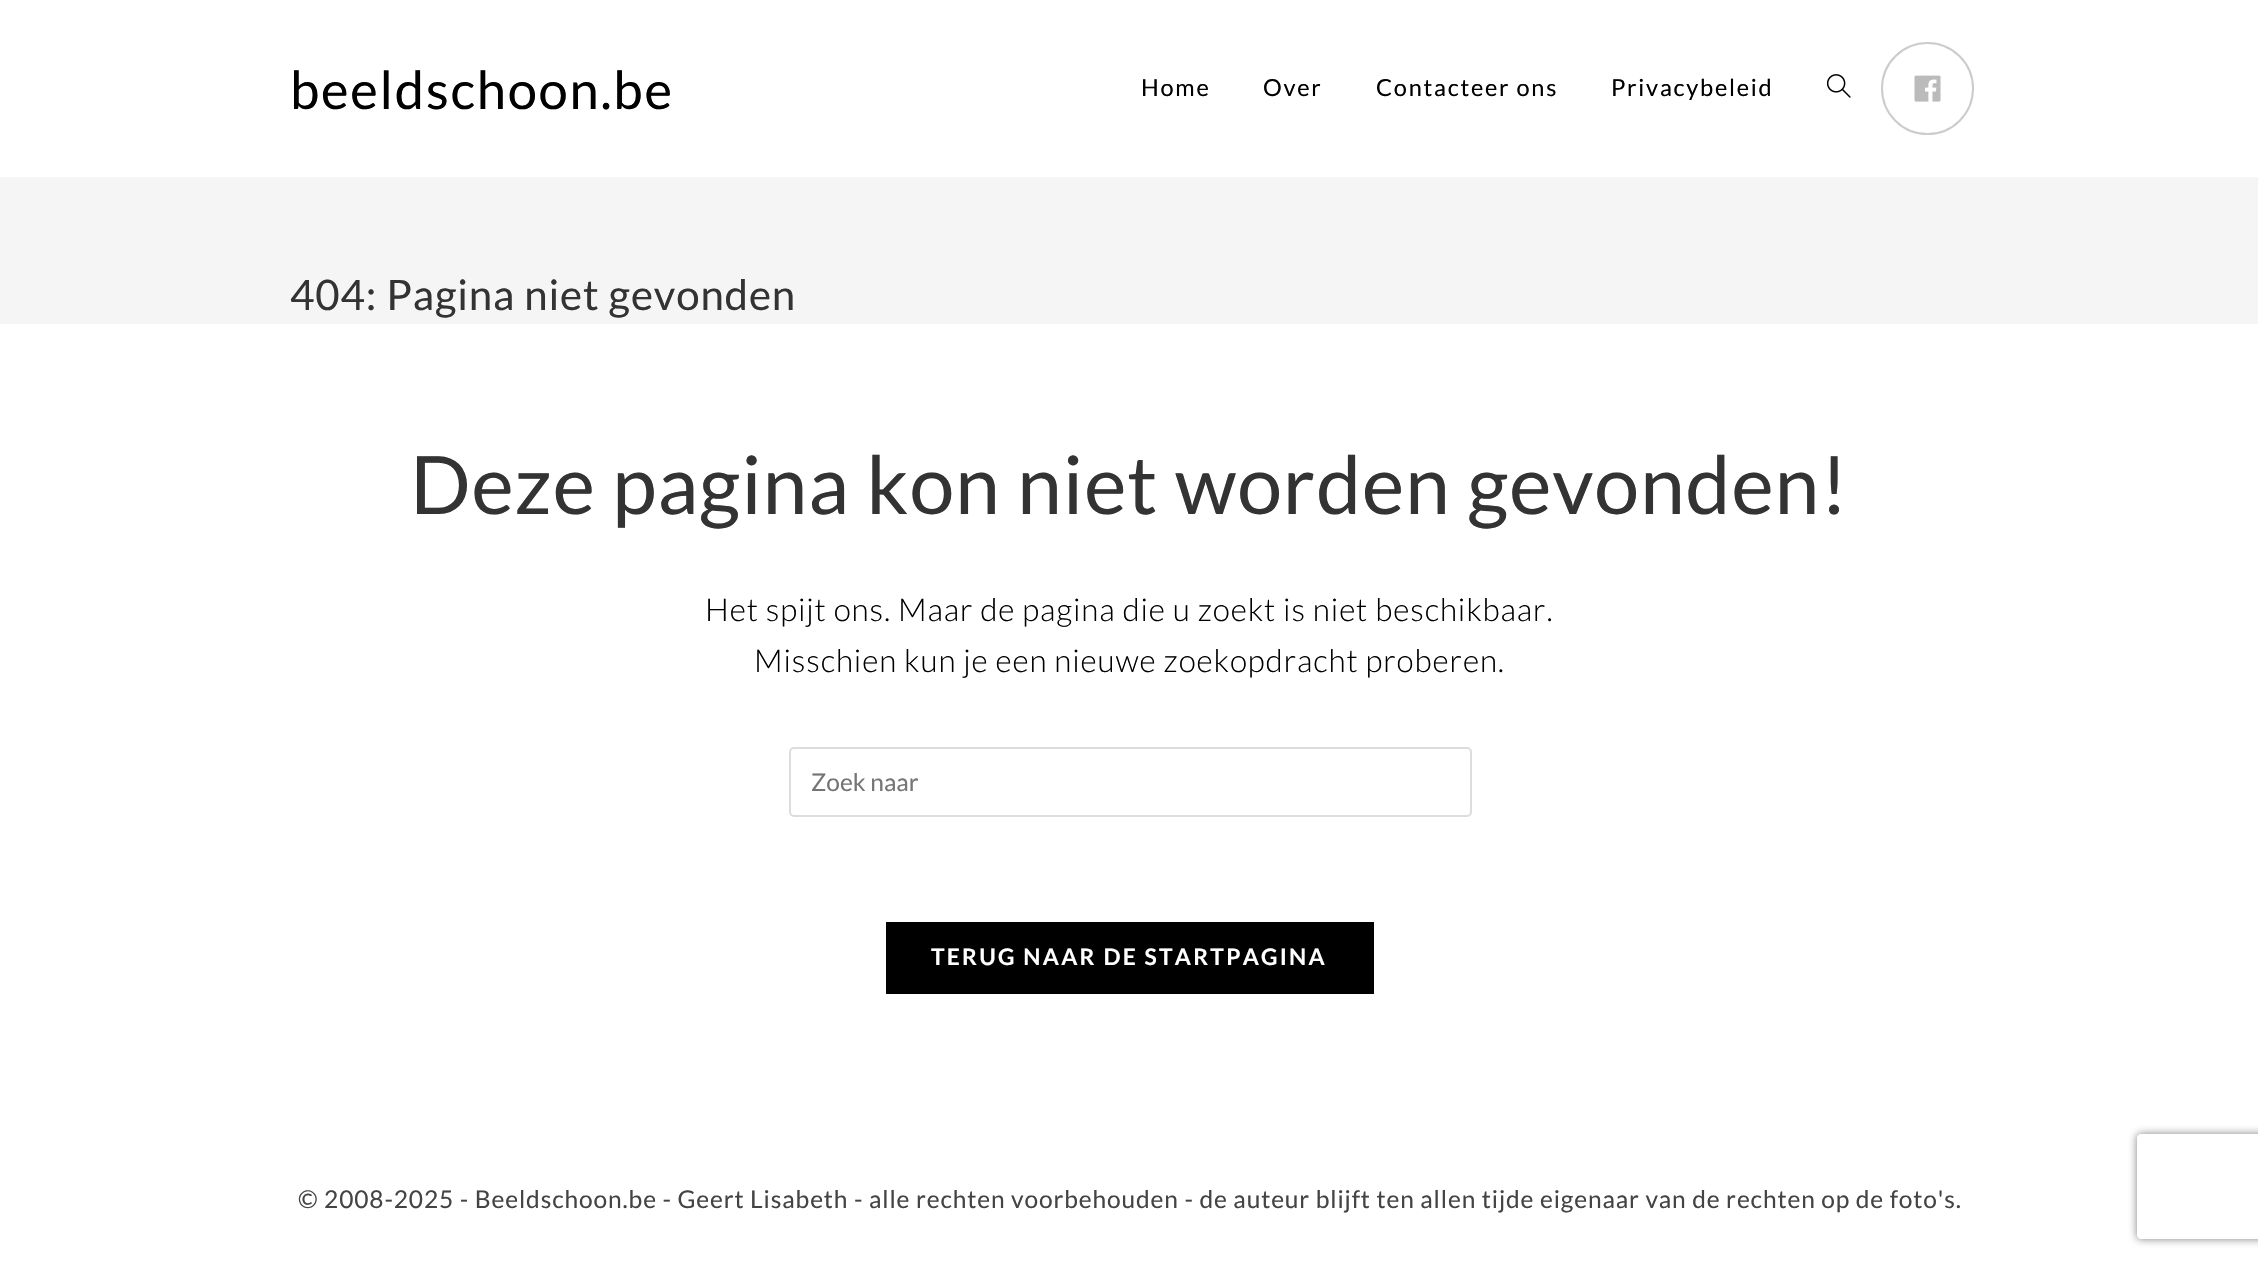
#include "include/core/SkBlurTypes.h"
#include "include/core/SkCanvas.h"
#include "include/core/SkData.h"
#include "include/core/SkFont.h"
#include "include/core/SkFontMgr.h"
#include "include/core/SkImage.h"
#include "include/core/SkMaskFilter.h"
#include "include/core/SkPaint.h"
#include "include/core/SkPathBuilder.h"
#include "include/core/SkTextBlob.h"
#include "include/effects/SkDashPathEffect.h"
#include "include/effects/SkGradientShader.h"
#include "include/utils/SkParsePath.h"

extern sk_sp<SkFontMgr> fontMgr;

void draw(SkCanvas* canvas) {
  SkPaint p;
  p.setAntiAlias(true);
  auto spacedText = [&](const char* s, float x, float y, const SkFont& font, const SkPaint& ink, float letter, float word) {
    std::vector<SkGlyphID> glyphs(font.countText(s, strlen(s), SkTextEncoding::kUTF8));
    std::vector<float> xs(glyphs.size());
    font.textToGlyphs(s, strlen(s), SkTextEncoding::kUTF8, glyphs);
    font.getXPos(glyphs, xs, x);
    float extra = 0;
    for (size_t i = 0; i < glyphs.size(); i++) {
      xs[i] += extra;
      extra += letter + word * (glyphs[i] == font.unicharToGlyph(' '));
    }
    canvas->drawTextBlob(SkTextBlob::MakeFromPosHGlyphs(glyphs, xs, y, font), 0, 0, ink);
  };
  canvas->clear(SK_ColorWHITE);
  canvas->drawImageRect(SkImages::DeferredFromEncodedData(SkData::MakeFromFileName("images/1.png")), SkRect::MakeLTRB(1826, 74, 1851, 98), SkSamplingOptions());
  p.setStyle(SkPaint::kStroke_Style);
  p.setStrokeWidth(2);
  p.setColor(SkColorSetRGB(204, 204, 204));
  canvas->drawCircle(1927.5f, 88.5f, 45.5f, p);
  canvas->drawImageRect(SkImages::DeferredFromEncodedData(SkData::MakeFromFileName("images/2.png")), SkRect::MakeLTRB(1914, 75, 1941, 102), SkSamplingOptions());
  p.setStyle(SkPaint::kFill_Style);
  p.setColor(SkColorSetRGB(245, 245, 245));
  canvas->drawRect(SkRect::MakeLTRB(0, 177, 2258, 324), p);
  p.setStyle(SkPaint::kStroke_Style);
  p.setColor(SkColorSetRGB(221, 221, 221));
  canvas->drawRoundRect(SkRect::MakeLTRB(790, 748, 1471, 816), 4, 4, p);
  p.setStyle(SkPaint::kFill_Style);
  p.setColor(SK_ColorBLACK);
  canvas->drawRect(SkRect::MakeLTRB(886, 922, 1374, 994), p);
  canvas->save();
  canvas->clipPath(SkPathBuilder(SkPathFillType::kEvenOdd).moveTo(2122, 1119).lineTo(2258, 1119).lineTo(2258, 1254).lineTo(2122, 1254).close().moveTo(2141, 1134).lineTo(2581, 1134).cubicTo(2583, 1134, 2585, 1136, 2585, 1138).lineTo(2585, 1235).cubicTo(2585, 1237, 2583, 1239, 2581, 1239).lineTo(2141, 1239).cubicTo(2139, 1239, 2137, 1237, 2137, 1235).lineTo(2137, 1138).cubicTo(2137, 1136, 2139, 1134, 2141, 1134).close().detach(), true);
  p.setColor(SkColorSetRGB(128, 128, 128));
  p.setMaskFilter(SkMaskFilter::MakeBlur(kNormal_SkBlurStyle, 4.5f));
  canvas->drawRoundRect(SkRect::MakeLTRB(2137, 1134, 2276, 1239), 4, 4, p);
  p.setMaskFilter(nullptr);
  canvas->restore();
  SkFont font1(fontMgr->matchFamilyStyle("Lato", SkFontStyle::Normal()), 52.5f);
  font1.setSubpixel(true);
  p.setColor(SK_ColorBLACK);
  spacedText("beeldschoon.be", 290, 109, font1, p, 1.75f, 0);
  SkFont font2(fontMgr->matchFamilyStyle("Lato", SkFontStyle::Normal()), 23.5f);
  font2.setSubpixel(true);
  spacedText("Home", 1141, 96, font2, p, 1.75f, 0);
  spacedText("Over", 1263, 96, font2, p, 1.75f, 0);
  spacedText("Contacteer ons", 1376, 96, font2, p, 1.75f, 0);
  spacedText("Privacybeleid", 1611, 96, font2, p, 1.75f, 0);
  SkFont font3(fontMgr->matchFamilyStyle("Lato", SkFontStyle::Normal()), 42);
  font3.setSubpixel(true);
  p.setColor(SkColorSetRGB(51, 51, 51));
  spacedText("404: Pagina niet gevonden", 290, 310, font3, p, 0.88f, 0);
  SkFont font4(fontMgr->matchFamilyStyle("Lato", SkFontStyle::Normal()), 80.5f);
  font4.setSubpixel(true);
  spacedText("Deze pagina kon niet worden gevonden!", 410, 514, font4, p, 0.88f, 0);
  SkFont font5(fontMgr->matchFamilyStyle("Lato", SkFontStyle(300, SkFontStyle::kNormal_Width, SkFontStyle::kUpright_Slant)), 31.5f);
  font5.setSubpixel(true);
  p.setColor(SK_ColorBLACK);
  spacedText("Het spijt ons. Maar de pagina die u zoekt is niet beschikbaar.", 705, 621, font5, p, 0.88f, 0);
  spacedText("Misschien kun je een nieuwe zoekopdracht proberen.", 754, 672, font5, p, 0.88f, 0);
  SkFont font6(fontMgr->matchFamilyStyle("Lato", SkFontStyle::Normal()), 24.5f);
  font6.setSubpixel(true);
  p.setColor(SkColorSetRGB(117, 117, 117));
  canvas->drawString("Zoek naar", 811, 791, font6, p);
  SkFont font7(fontMgr->matchFamilyStyle("Lato", SkFontStyle::Bold()), 22.75f);
  font7.setSubpixel(true);
  p.setColor(SK_ColorWHITE);
  spacedText("TERUG NAAR DE STARTPAGINA", 931, 965, font7, p, 2.25f, 0);
  p.setColor(SkColorSetRGB(68, 68, 68));
  spacedText("© 2008-2025 - Beeldschoon.be - Geert Lisabeth - alle rechten voorbehouden - de auteur blijft ten allen tijde eigenaar van de rechten op de foto's.", 298, 1208, font6, p, 0.88f, 0);
}
